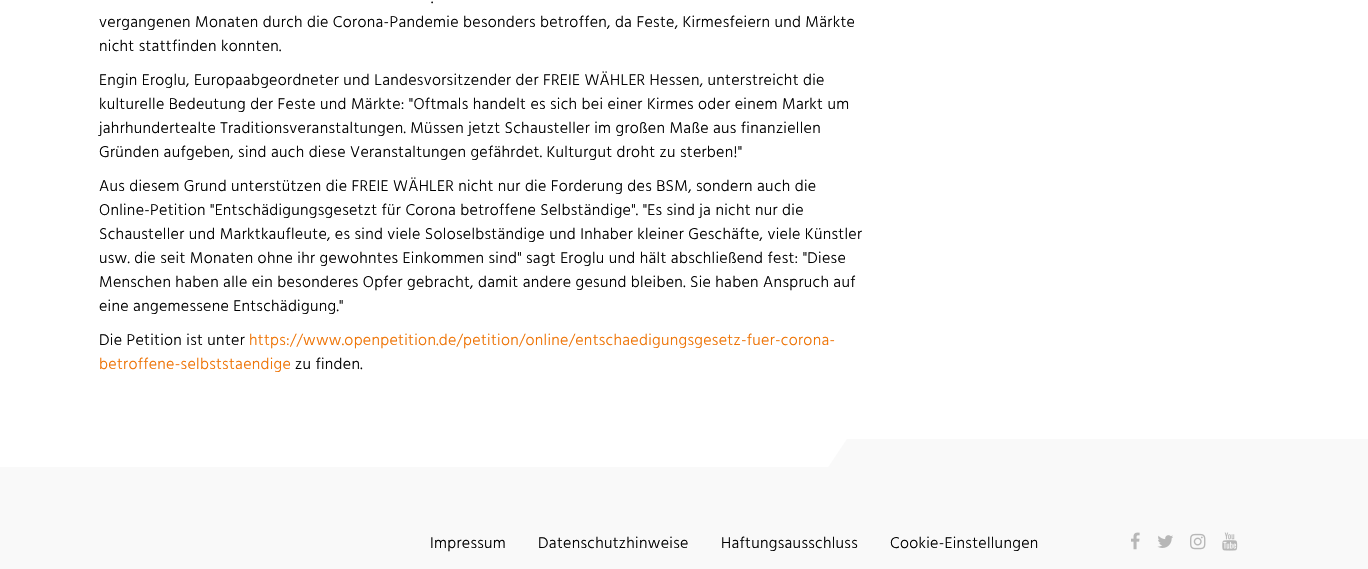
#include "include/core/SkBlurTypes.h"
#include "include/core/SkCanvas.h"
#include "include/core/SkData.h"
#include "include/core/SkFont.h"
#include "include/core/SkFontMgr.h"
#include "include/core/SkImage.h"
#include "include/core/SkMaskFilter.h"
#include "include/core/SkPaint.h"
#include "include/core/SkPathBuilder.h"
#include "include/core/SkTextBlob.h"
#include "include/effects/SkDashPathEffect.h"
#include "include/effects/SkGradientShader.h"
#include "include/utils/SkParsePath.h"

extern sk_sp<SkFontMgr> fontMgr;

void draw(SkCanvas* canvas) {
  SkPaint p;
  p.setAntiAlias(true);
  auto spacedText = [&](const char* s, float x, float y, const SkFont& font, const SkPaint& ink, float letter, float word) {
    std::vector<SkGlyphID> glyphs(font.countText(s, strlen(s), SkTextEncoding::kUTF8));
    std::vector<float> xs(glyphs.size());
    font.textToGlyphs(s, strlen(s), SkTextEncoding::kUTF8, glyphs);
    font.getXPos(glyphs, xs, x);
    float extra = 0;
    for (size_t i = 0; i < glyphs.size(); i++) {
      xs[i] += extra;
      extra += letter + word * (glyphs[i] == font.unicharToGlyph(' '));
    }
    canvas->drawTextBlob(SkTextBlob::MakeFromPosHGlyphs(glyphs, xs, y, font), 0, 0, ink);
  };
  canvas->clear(SK_ColorWHITE);
  p.setColor(SkColorSetRGB(249, 249, 249));
  canvas->drawRect(SkRect::MakeLTRB(0, 467, 1368, 569), p);
  canvas->drawPath(SkPathBuilder().moveTo(847, 439).lineTo(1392, 439).lineTo(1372, 469).lineTo(827, 469).close().detach(), p);
  canvas->drawImageRect(SkImages::DeferredFromEncodedData(SkData::MakeFromFileName("images/1.png")), SkRect::MakeLTRB(1131, 532, 1140, 550), SkSamplingOptions());
  canvas->drawImageRect(SkImages::DeferredFromEncodedData(SkData::MakeFromFileName("images/2.png")), SkRect::MakeLTRB(1157, 535, 1173, 548), SkSamplingOptions());
  canvas->drawImageRect(SkImages::DeferredFromEncodedData(SkData::MakeFromFileName("images/3.png")), SkRect::MakeLTRB(1190, 533, 1206, 550), SkSamplingOptions());
  canvas->drawImageRect(SkImages::DeferredFromEncodedData(SkData::MakeFromFileName("images/4.png")), SkRect::MakeLTRB(1222, 532, 1238, 551), SkSamplingOptions());
  SkFont font1(fontMgr->matchFamilyStyle("Hind", SkFontStyle(300, SkFontStyle::kNormal_Width, SkFontStyle::kUpright_Slant)), 16);
  font1.setSubpixel(true);
  p.setColor(SK_ColorBLACK);
  spacedText(".", 431, 3, font1, p, 0.32f, 0);
  spacedText("vergangenen Monaten durch die Corona-Pandemie besonders betroffen, da Feste, Kirmesfeiern und Märkte", 99, 27, font1, p, 0.32f, 0);
  spacedText("nicht stattfinden konnten.", 99, 51, font1, p, 0.32f, 0);
  spacedText("Engin Eroglu, Europaabgeordneter und Landesvorsitzender der FREIE WÄHLER Hessen, unterstreicht die", 99, 85, font1, p, 0.32f, 0);
  spacedText("kulturelle Bedeutung der Feste und Märkte: \"Oftmals handelt es sich bei einer Kirmes oder einem Markt um", 99, 109, font1, p, 0.32f, 0);
  spacedText("jahrhundertealte Traditionsveranstaltungen. Müssen jetzt Schausteller im großen Maße aus finanziellen", 99, 133, font1, p, 0.32f, 0);
  spacedText("Gründen aufgeben, sind auch diese Veranstaltungen gefährdet. Kulturgut droht zu sterben!\"", 99, 157, font1, p, 0.32f, 0);
  spacedText("Aus diesem Grund unterstützen die FREIE WÄHLER nicht nur die Forderung des BSM, sondern auch die", 99, 191, font1, p, 0.32f, 0);
  spacedText("Online-Petition \"Entschädigungsgesetzt für Corona betroffene Selbständige\". \"Es sind ja nicht nur die", 99, 215, font1, p, 0.32f, 0);
  spacedText("Schausteller und Marktkaufleute, es sind viele Soloselbständige und Inhaber kleiner Geschäfte, viele Künstler", 99, 239, font1, p, 0.32f, 0);
  spacedText("usw. die seit Monaten ohne ihr gewohntes Einkommen sind\" sagt Eroglu und hält abschließend fest: \"Diese", 99, 263, font1, p, 0.32f, 0);
  spacedText("Menschen haben alle ein besonderes Opfer gebracht, damit andere gesund bleiben. Sie haben Anspruch auf", 99, 287, font1, p, 0.32f, 0);
  spacedText("eine angemessene Entschädigung.\"", 99, 311, font1, p, 0.32f, 0);
  spacedText("Die Petition ist unter", 99, 345, font1, p, 0.32f, 0);
  p.setColor(SkColorSetRGB(238, 114, 3));
  spacedText("https://www.openpetition.de/petition/online/entschaedigungsgesetz-fuer-corona-", 249, 345, font1, p, 0.32f, 0);
  spacedText("betroffene-selbststaendige", 99, 369, font1, p, 0.32f, 0);
  p.setColor(SK_ColorBLACK);
  spacedText("zu finden.", 295, 369, font1, p, 0.32f, 0);
  spacedText("Impressum", 430, 548, font1, p, 0.32f, 0);
  spacedText("Datenschutzhinweise", 538, 548, font1, p, 0.32f, 0);
  spacedText("Haftungsausschluss", 721, 548, font1, p, 0.32f, 0);
  spacedText("Cookie-Einstellungen", 890, 548, font1, p, 0.32f, 0);
}
